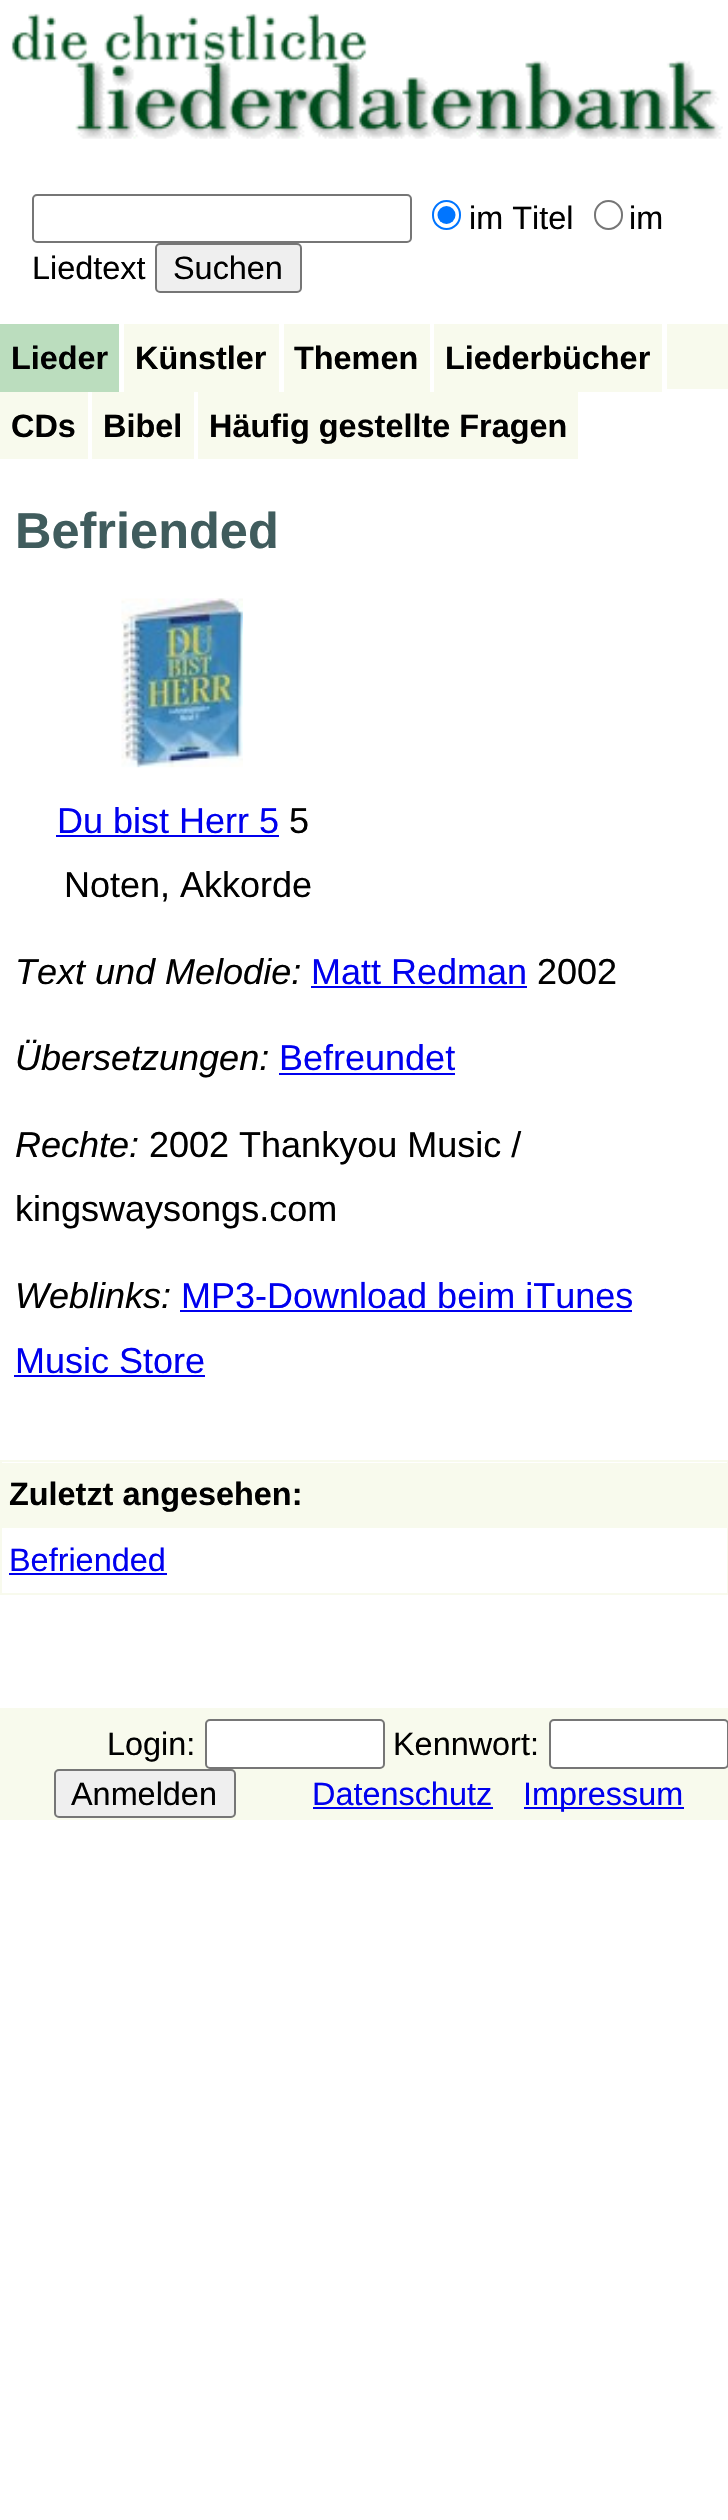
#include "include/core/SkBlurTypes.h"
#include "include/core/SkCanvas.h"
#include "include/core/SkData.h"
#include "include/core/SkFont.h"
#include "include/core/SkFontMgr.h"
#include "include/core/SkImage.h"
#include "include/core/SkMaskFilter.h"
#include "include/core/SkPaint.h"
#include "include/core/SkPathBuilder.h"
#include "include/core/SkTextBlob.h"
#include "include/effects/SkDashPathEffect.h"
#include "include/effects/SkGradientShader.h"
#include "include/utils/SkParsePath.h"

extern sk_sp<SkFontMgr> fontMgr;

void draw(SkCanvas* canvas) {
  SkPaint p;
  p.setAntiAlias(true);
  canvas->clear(SK_ColorWHITE);
  canvas->drawImageRect(SkImages::DeferredFromEncodedData(SkData::MakeFromFileName("images/1.png")), SkRect::MakeLTRB(11, 13, 723, 139), SkSamplingOptions());
  p.setStyle(SkPaint::kStroke_Style);
  p.setStrokeWidth(2);
  p.setColor(SkColorSetRGB(118, 118, 118));
  canvas->drawRoundRect(SkRect::MakeLTRB(33, 195, 411, 242), 4, 4, p);
  canvas->drawRoundRect(SkRect::MakeLTRB(595, 201, 622, 229), 13.5f, 13.5f, p);
  p.setColor(SkColorSetRGB(0, 117, 255));
  canvas->drawRoundRect(SkRect::MakeLTRB(433, 201, 460, 229), 13.5f, 13.5f, p);
  p.setStyle(SkPaint::kFill_Style);
  canvas->drawCircle(446.5f, 215, 9, p);
  p.setColor(SkColorSetRGB(239, 239, 239));
  canvas->drawRoundRect(SkRect::MakeLTRB(156, 244, 301, 292), 4, 4, p);
  p.setStyle(SkPaint::kStroke_Style);
  p.setColor(SkColorSetRGB(118, 118, 118));
  canvas->drawRoundRect(SkRect::MakeLTRB(156, 244, 301, 292), 4, 4, p);
  p.setStyle(SkPaint::kFill_Style);
  p.setColor(SkColorSetRGB(248, 250, 237));
  canvas->drawRect(SkRect::MakeLTRB(667, 324, 728, 389), p);
  p.setColor(SkColorSetRGB(187, 221, 190));
  canvas->drawRect(SkRect::MakeLTRB(0, 324, 119, 392), p);
  p.setColor(SkColorSetRGB(248, 250, 237));
  canvas->drawRect(SkRect::MakeLTRB(124, 324, 279, 392), p);
  canvas->drawRect(SkRect::MakeLTRB(284, 324, 430, 392), p);
  canvas->drawRect(SkRect::MakeLTRB(434, 324, 662, 392), p);
  canvas->drawRect(SkRect::MakeLTRB(0, 392, 88, 459), p);
  canvas->drawRect(SkRect::MakeLTRB(92, 392, 194, 459), p);
  canvas->drawRect(SkRect::MakeLTRB(198, 392, 578, 459), p);
  canvas->drawImageRect(SkImages::DeferredFromEncodedData(SkData::MakeFromFileName("images/2.png")), SkRect::MakeLTRB(121, 598, 243, 768), SkSamplingOptions());
  p.setColor(SkColorSetRGB(0, 0, 238));
  canvas->drawRect(SkRect::MakeLTRB(56, 835, 279, 837), p);
  canvas->drawRect(SkRect::MakeLTRB(311, 986, 527, 988), p);
  canvas->drawRect(SkRect::MakeLTRB(279, 1073, 455, 1075), p);
  canvas->drawRect(SkRect::MakeLTRB(180, 1310, 632, 1312), p);
  canvas->drawRect(SkRect::MakeLTRB(14, 1375, 205, 1377), p);
  p.setStyle(SkPaint::kStroke_Style);
  p.setColor(SkColorSetRGB(248, 250, 237));
  canvas->drawRect(SkRect::MakeLTRB(1, 1461, 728, 1594), p);
  p.setStyle(SkPaint::kFill_Style);
  canvas->drawRect(SkRect::MakeLTRB(2, 1463, 727, 1528), p);
  p.setColor(SkColorSetRGB(0, 0, 238));
  canvas->drawRect(SkRect::MakeLTRB(9, 1573, 167, 1575), p);
  p.setColor(SkColorSetRGB(248, 250, 237));
  canvas->drawRect(SkRect::MakeLTRB(0, 1708, 728, 1820), p);
  p.setColor(SK_ColorWHITE);
  canvas->drawRoundRect(SkRect::MakeLTRB(206, 1720, 384, 1768), 4, 4, p);
  p.setStyle(SkPaint::kStroke_Style);
  p.setColor(SkColorSetRGB(118, 118, 118));
  canvas->drawRoundRect(SkRect::MakeLTRB(206, 1720, 384, 1768), 4, 4, p);
  p.setStyle(SkPaint::kFill_Style);
  p.setColor(SK_ColorWHITE);
  canvas->drawRoundRect(SkRect::MakeLTRB(550, 1720, 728, 1768), 4, 4, p);
  p.setStyle(SkPaint::kStroke_Style);
  p.setColor(SkColorSetRGB(118, 118, 118));
  canvas->drawRoundRect(SkRect::MakeLTRB(550, 1720, 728, 1768), 4, 4, p);
  p.setStyle(SkPaint::kFill_Style);
  p.setColor(SkColorSetRGB(239, 239, 239));
  canvas->drawRoundRect(SkRect::MakeLTRB(55, 1770, 235, 1817), 4, 4, p);
  p.setStyle(SkPaint::kStroke_Style);
  p.setColor(SkColorSetRGB(118, 118, 118));
  canvas->drawRoundRect(SkRect::MakeLTRB(55, 1770, 235, 1817), 4, 4, p);
  p.setStyle(SkPaint::kFill_Style);
  p.setColor(SkColorSetRGB(0, 0, 238));
  canvas->drawRect(SkRect::MakeLTRB(313, 1807, 493, 1809), p);
  canvas->drawRect(SkRect::MakeLTRB(524, 1807, 684, 1809), p);
  SkFont font1(fontMgr->matchFamilyStyle("Liberation Sans", SkFontStyle::Normal()), 32.4f);
  font1.setSubpixel(true);
  p.setColor(SK_ColorBLACK);
  canvas->drawString("im", 629, 229, font1, p);
  canvas->drawString("Liedtext", 32, 279, font1, p);
  canvas->drawString("im Titel", 469, 229, font1, p);
  canvas->drawString("Suchen", 173, 279, font1, p);
  SkFont font2(fontMgr->matchFamilyStyle("Liberation Sans", SkFontStyle::Bold()), 32.4f);
  font2.setSubpixel(true);
  canvas->drawString("Lieder", 11, 369, font2, p);
  canvas->drawString("Künstler", 135, 369, font2, p);
  canvas->drawString("Themen", 294, 369, font2, p);
  canvas->drawString("Liederbücher", 445, 369, font2, p);
  canvas->drawString("CDs", 11, 437, font2, p);
  canvas->drawString("Bibel", 103, 437, font2, p);
  canvas->drawString("Häufig gestellte Fragen", 209, 437, font2, p);
  SkFont font3(fontMgr->matchFamilyStyle("Liberation Sans", SkFontStyle::Bold()), 50.5f);
  font3.setSubpixel(true);
  p.setColor(SkColorSetRGB(64, 92, 93));
  canvas->drawString("Befriended", 15, 548, font3, p);
  SkFont font4(fontMgr->matchFamilyStyle("Liberation Sans", SkFontStyle::Normal()), 36);
  font4.setSubpixel(true);
  p.setColor(SkColorSetRGB(0, 0, 238));
  canvas->drawString("Du bist Herr 5", 57, 833, font4, p);
  p.setColor(SK_ColorBLACK);
  canvas->drawString("5", 289, 833, font4, p);
  canvas->drawString("Noten, Akkorde", 64, 897, font4, p);
  SkFont font5(fontMgr->matchFamilyStyle("Liberation Sans", SkFontStyle::Italic()), 36);
  font5.setSubpixel(true);
  canvas->drawString("Text und Melodie:", 15, 984, font5, p);
  p.setColor(SkColorSetRGB(0, 0, 238));
  canvas->drawString("Matt Redman", 311, 984, font4, p);
  p.setColor(SK_ColorBLACK);
  canvas->drawString("2002", 537, 984, font4, p);
  canvas->drawString("Übersetzungen:", 15, 1070, font5, p);
  p.setColor(SkColorSetRGB(0, 0, 238));
  canvas->drawString("Befreundet", 279, 1070, font4, p);
  p.setColor(SK_ColorBLACK);
  canvas->drawString("Rechte:", 15, 1157, font5, p);
  canvas->drawString("2002 Thankyou Music /", 149, 1157, font4, p);
  canvas->drawString("kingswaysongs.com", 15, 1221, font4, p);
  canvas->drawString("Weblinks:", 15, 1308, font5, p);
  p.setColor(SkColorSetRGB(0, 0, 238));
  canvas->drawString("MP3-Download beim iTunes", 181, 1308, font4, p);
  canvas->drawString("Music Store", 15, 1373, font4, p);
  p.setColor(SK_ColorBLACK);
  canvas->drawString("Zuletzt angesehen:", 9, 1505, font2, p);
  p.setColor(SkColorSetRGB(0, 0, 238));
  canvas->drawString("Befriended", 9, 1571, font1, p);
  p.setColor(SK_ColorBLACK);
  canvas->drawString("Login:", 107, 1755, font1, p);
  canvas->drawString("Kennwort:", 393, 1755, font1, p);
  canvas->drawString("Anmelden", 71, 1805, font1, p);
  p.setColor(SkColorSetRGB(0, 0, 238));
  canvas->drawString("Datenschutz", 312, 1805, font1, p);
  canvas->drawString("Impressum", 523, 1805, font1, p);
}
